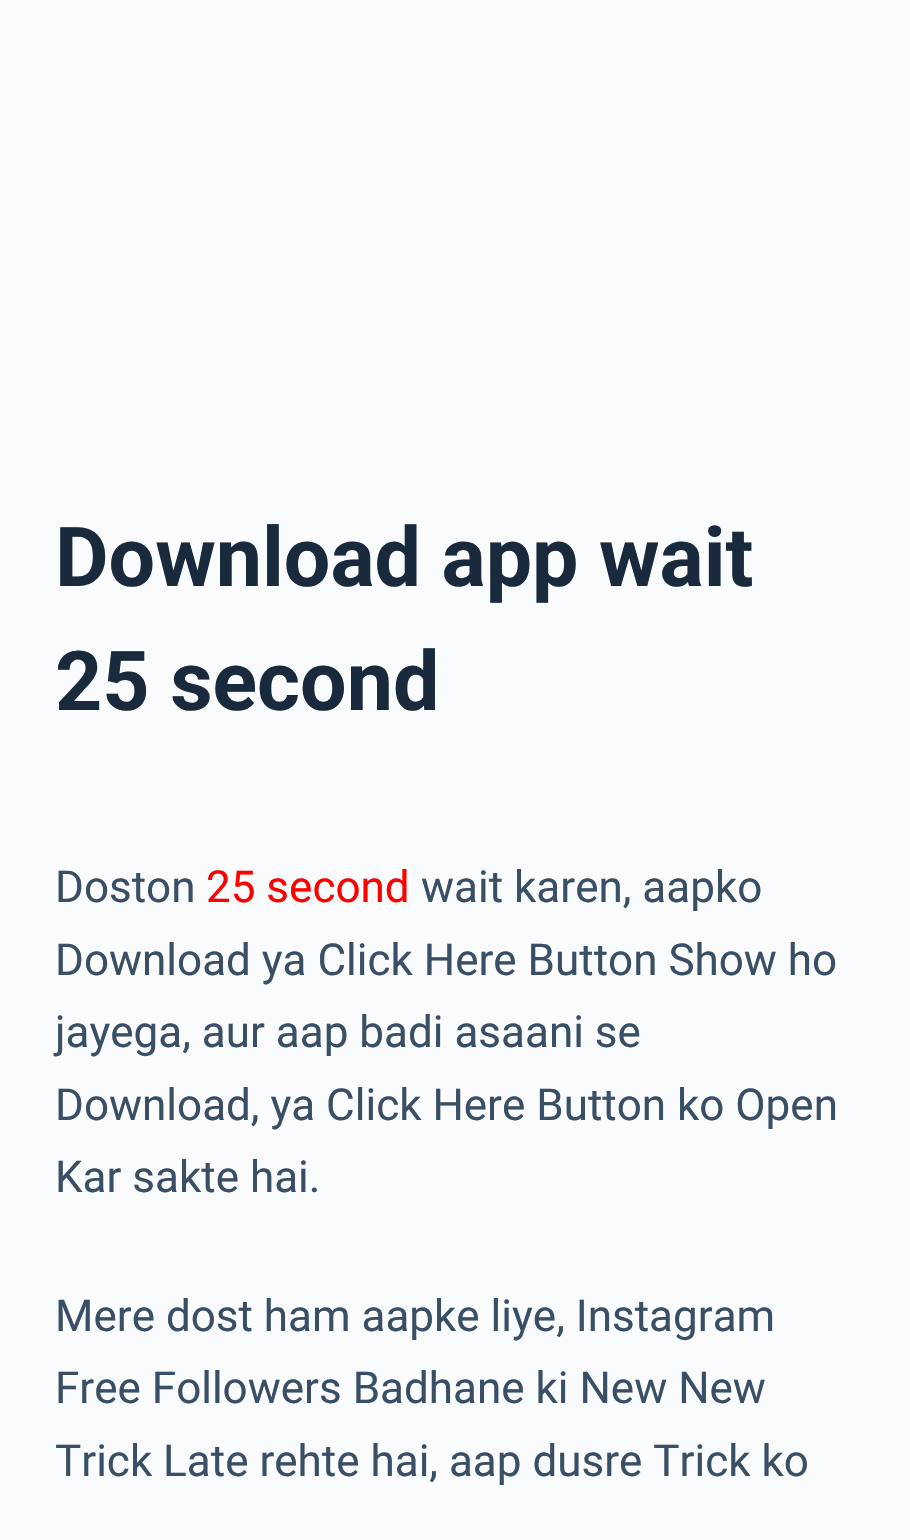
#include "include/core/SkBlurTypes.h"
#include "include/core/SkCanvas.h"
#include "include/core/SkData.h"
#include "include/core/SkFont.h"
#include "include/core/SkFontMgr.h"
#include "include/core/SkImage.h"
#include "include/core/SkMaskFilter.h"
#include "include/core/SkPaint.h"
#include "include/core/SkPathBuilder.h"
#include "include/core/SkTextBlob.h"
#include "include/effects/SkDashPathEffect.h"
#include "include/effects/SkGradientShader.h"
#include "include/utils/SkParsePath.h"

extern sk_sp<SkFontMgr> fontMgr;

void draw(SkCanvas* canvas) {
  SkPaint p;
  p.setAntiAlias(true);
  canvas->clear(SkColorSetRGB(250, 251, 252));
  SkFont font1(fontMgr->matchFamilyStyle("Roboto", SkFontStyle::Bold()), 82.5f);
  font1.setSubpixel(true);
  p.setColor(SkColorSetRGB(25, 42, 61));
  canvas->drawString("Download app wait", 55, 586, font1, p);
  canvas->drawString("25 second", 55, 710, font1, p);
  SkFont font2(fontMgr->matchFamilyStyle("Roboto", SkFontStyle::Normal()), 44);
  font2.setSubpixel(true);
  p.setColor(SkColorSetRGB(58, 79, 102));
  canvas->drawString("Doston", 55, 902, font2, p);
  p.setColor(SkColorSetRGB(255, 0, 0));
  canvas->drawString("25 second", 206, 902, font2, p);
  p.setColor(SkColorSetRGB(58, 79, 102));
  canvas->drawString("wait karen, aapko", 421, 902, font2, p);
  canvas->drawString("Download ya Click Here Button Show ho", 55, 975, font2, p);
  canvas->drawString("jayega, aur aap badi asaani se", 55, 1047, font2, p);
  canvas->drawString("Download, ya Click Here Button ko Open", 55, 1120, font2, p);
  canvas->drawString("Kar sakte hai.", 55, 1192, font2, p);
  canvas->drawString("Mere dost ham aapke liye, Instagram", 55, 1331, font2, p);
  canvas->drawString("Free Followers Badhane ki New New", 55, 1403, font2, p);
  canvas->drawString("Trick Late rehte hai, aap dusre Trick ko", 55, 1476, font2, p);
}
